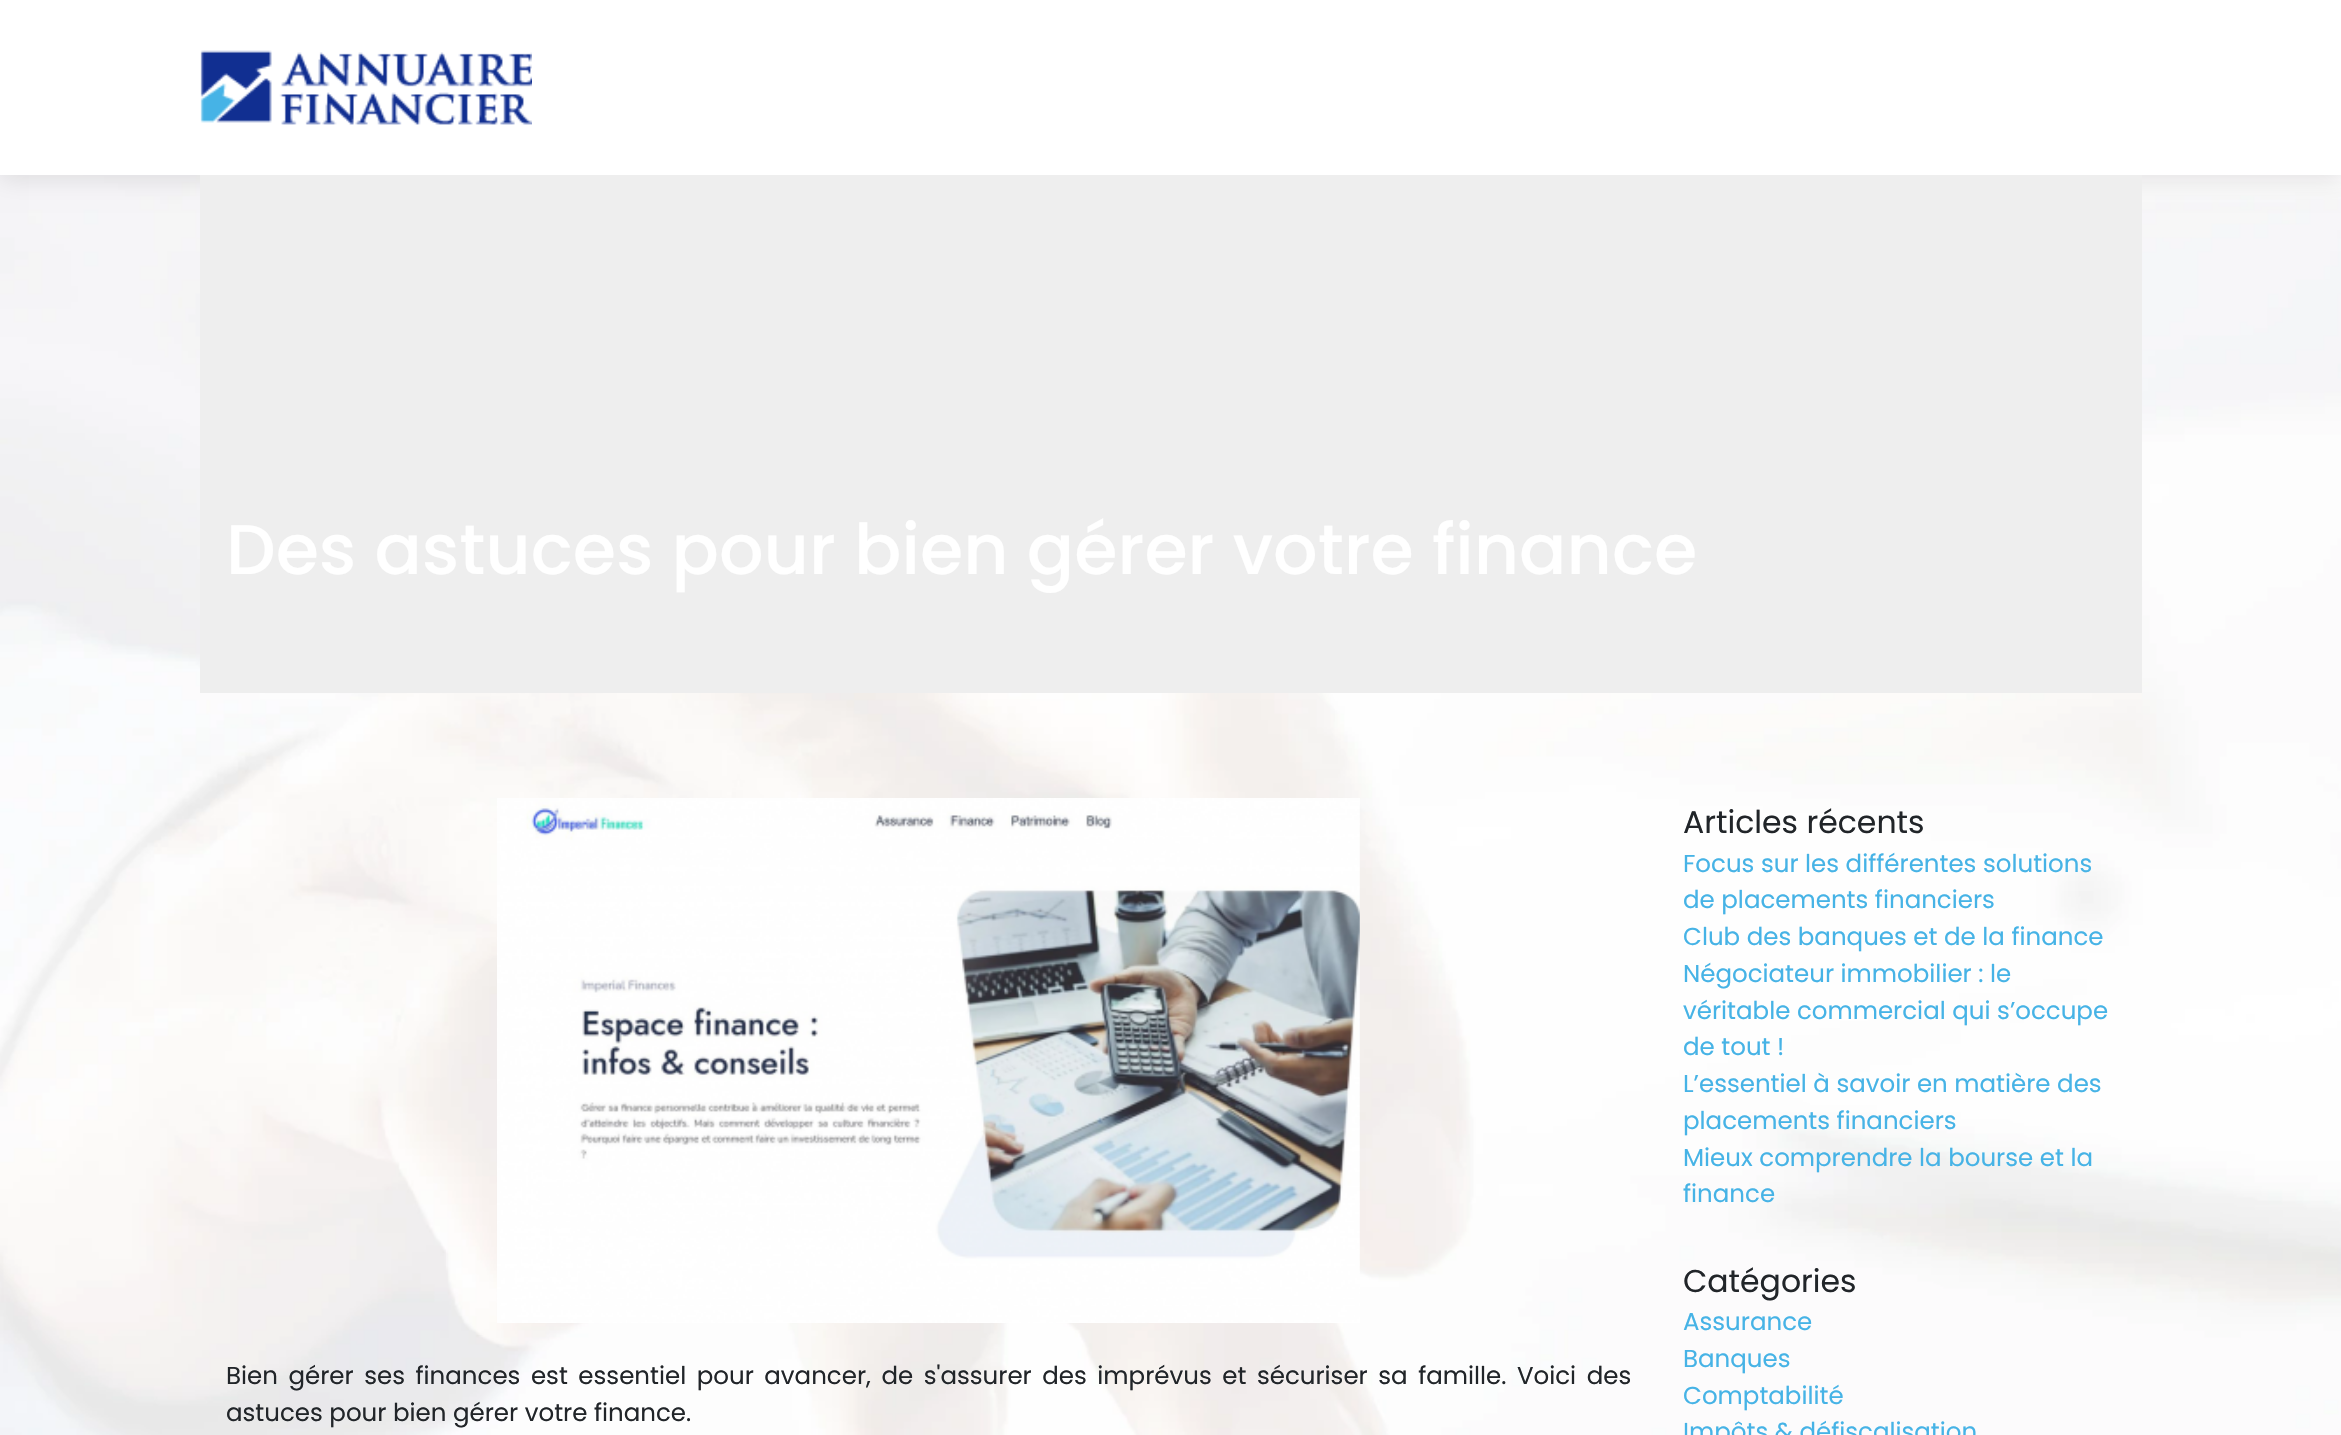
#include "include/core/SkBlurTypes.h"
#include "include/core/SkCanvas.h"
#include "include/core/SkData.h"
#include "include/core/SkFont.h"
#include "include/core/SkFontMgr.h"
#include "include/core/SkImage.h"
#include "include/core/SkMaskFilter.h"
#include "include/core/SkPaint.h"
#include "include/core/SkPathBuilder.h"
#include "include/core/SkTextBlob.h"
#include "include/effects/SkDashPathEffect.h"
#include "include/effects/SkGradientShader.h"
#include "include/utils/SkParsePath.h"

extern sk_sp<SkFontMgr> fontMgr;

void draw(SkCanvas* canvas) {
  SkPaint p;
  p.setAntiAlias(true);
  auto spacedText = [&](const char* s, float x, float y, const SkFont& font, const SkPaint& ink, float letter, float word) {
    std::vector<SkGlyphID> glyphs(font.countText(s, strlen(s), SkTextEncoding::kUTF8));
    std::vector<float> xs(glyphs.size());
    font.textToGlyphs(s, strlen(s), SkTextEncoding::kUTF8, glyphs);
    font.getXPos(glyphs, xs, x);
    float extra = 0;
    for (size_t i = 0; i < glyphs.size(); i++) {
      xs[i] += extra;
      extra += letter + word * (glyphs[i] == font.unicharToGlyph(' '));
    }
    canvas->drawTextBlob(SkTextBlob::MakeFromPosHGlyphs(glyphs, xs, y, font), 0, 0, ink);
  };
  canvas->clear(SK_ColorWHITE);
  canvas->drawImageRect(SkImages::DeferredFromEncodedData(SkData::MakeFromFileName("images/1.png")), SkRect::MakeLTRB(0, 175, 2341, 1435), SkSamplingOptions());
  p.setColor(SkColorSetARGB(26, 0, 0, 0));
  p.setMaskFilter(SkMaskFilter::MakeBlur(kNormal_SkBlurStyle, 11.5f));
  canvas->drawRect(SkRect::MakeLTRB(0, 4, 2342, 179), p);
  p.setMaskFilter(nullptr);
  p.setColor(SK_ColorWHITE);
  canvas->drawRect(SkRect::MakeLTRB(0, 0, 2341, 175), p);
  canvas->drawImageRect(SkImages::DeferredFromEncodedData(SkData::MakeFromFileName("images/2.png")), SkRect::MakeLTRB(200, 50, 532, 125), SkSamplingOptions());
  p.setColor(SkColorSetRGB(238, 238, 238));
  canvas->drawRect(SkRect::MakeLTRB(200, 175, 2142, 693), p);
  canvas->drawImageRect(SkImages::DeferredFromEncodedData(SkData::MakeFromFileName("images/3.png")), SkRect::MakeLTRB(497, 798, 1360, 1323), SkSamplingOptions());
  SkFont font1(fontMgr->matchFamilyStyle("Poppins", SkFontStyle(500, SkFontStyle::kNormal_Width, SkFontStyle::kUpright_Slant)), 70);
  font1.setSubpixel(true);
  p.setColor(SK_ColorWHITE);
  canvas->drawString("Des astuces pour bien gérer votre finance", 226, 574, font1, p);
  SkFont font2(fontMgr->matchFamilyStyle("Poppins", SkFontStyle::Normal()), 24.5f);
  font2.setSubpixel(true);
  p.setColor(SkColorSetRGB(33, 37, 41));
  spacedText("Bien gérer ses finances est essentiel pour avancer, de s'assurer des imprévus et sécuriser sa famille. Voici des", 226, 1384, font2, p, 0, 4);
  canvas->drawString("astuces pour bien gérer votre finance.", 226, 1421, font2, p);
  SkFont font3(fontMgr->matchFamilyStyle("Poppins", SkFontStyle::Normal()), 31.5f);
  font3.setSubpixel(true);
  canvas->drawString("Articles récents", 1683, 833, font3, p);
  p.setColor(SkColorSetRGB(70, 179, 230));
  canvas->drawString("Focus sur les différentes solutions", 1683, 872, font2, p);
  canvas->drawString("de placements financiers", 1683, 908, font2, p);
  canvas->drawString("Club des banques et de la finance", 1683, 945, font2, p);
  canvas->drawString("Négociateur immobilier : le", 1683, 982, font2, p);
  canvas->drawString("véritable commercial qui s’occupe", 1683, 1019, font2, p);
  canvas->drawString("de tout !", 1683, 1055, font2, p);
  canvas->drawString("L’essentiel à savoir en matière des", 1683, 1092, font2, p);
  canvas->drawString("placements financiers", 1683, 1129, font2, p);
  canvas->drawString("Mieux comprendre la bourse et la", 1683, 1166, font2, p);
  canvas->drawString("finance", 1683, 1202, font2, p);
  p.setColor(SkColorSetRGB(33, 37, 41));
  canvas->drawString("Catégories", 1683, 1292, font3, p);
  p.setColor(SkColorSetRGB(70, 179, 230));
  canvas->drawString("Assurance", 1683, 1330, font2, p);
  canvas->drawString("Banques", 1683, 1367, font2, p);
  canvas->drawString("Comptabilité", 1683, 1404, font2, p);
  canvas->drawString("Impôts & défiscalisation", 1683, 1440, font2, p);
}
